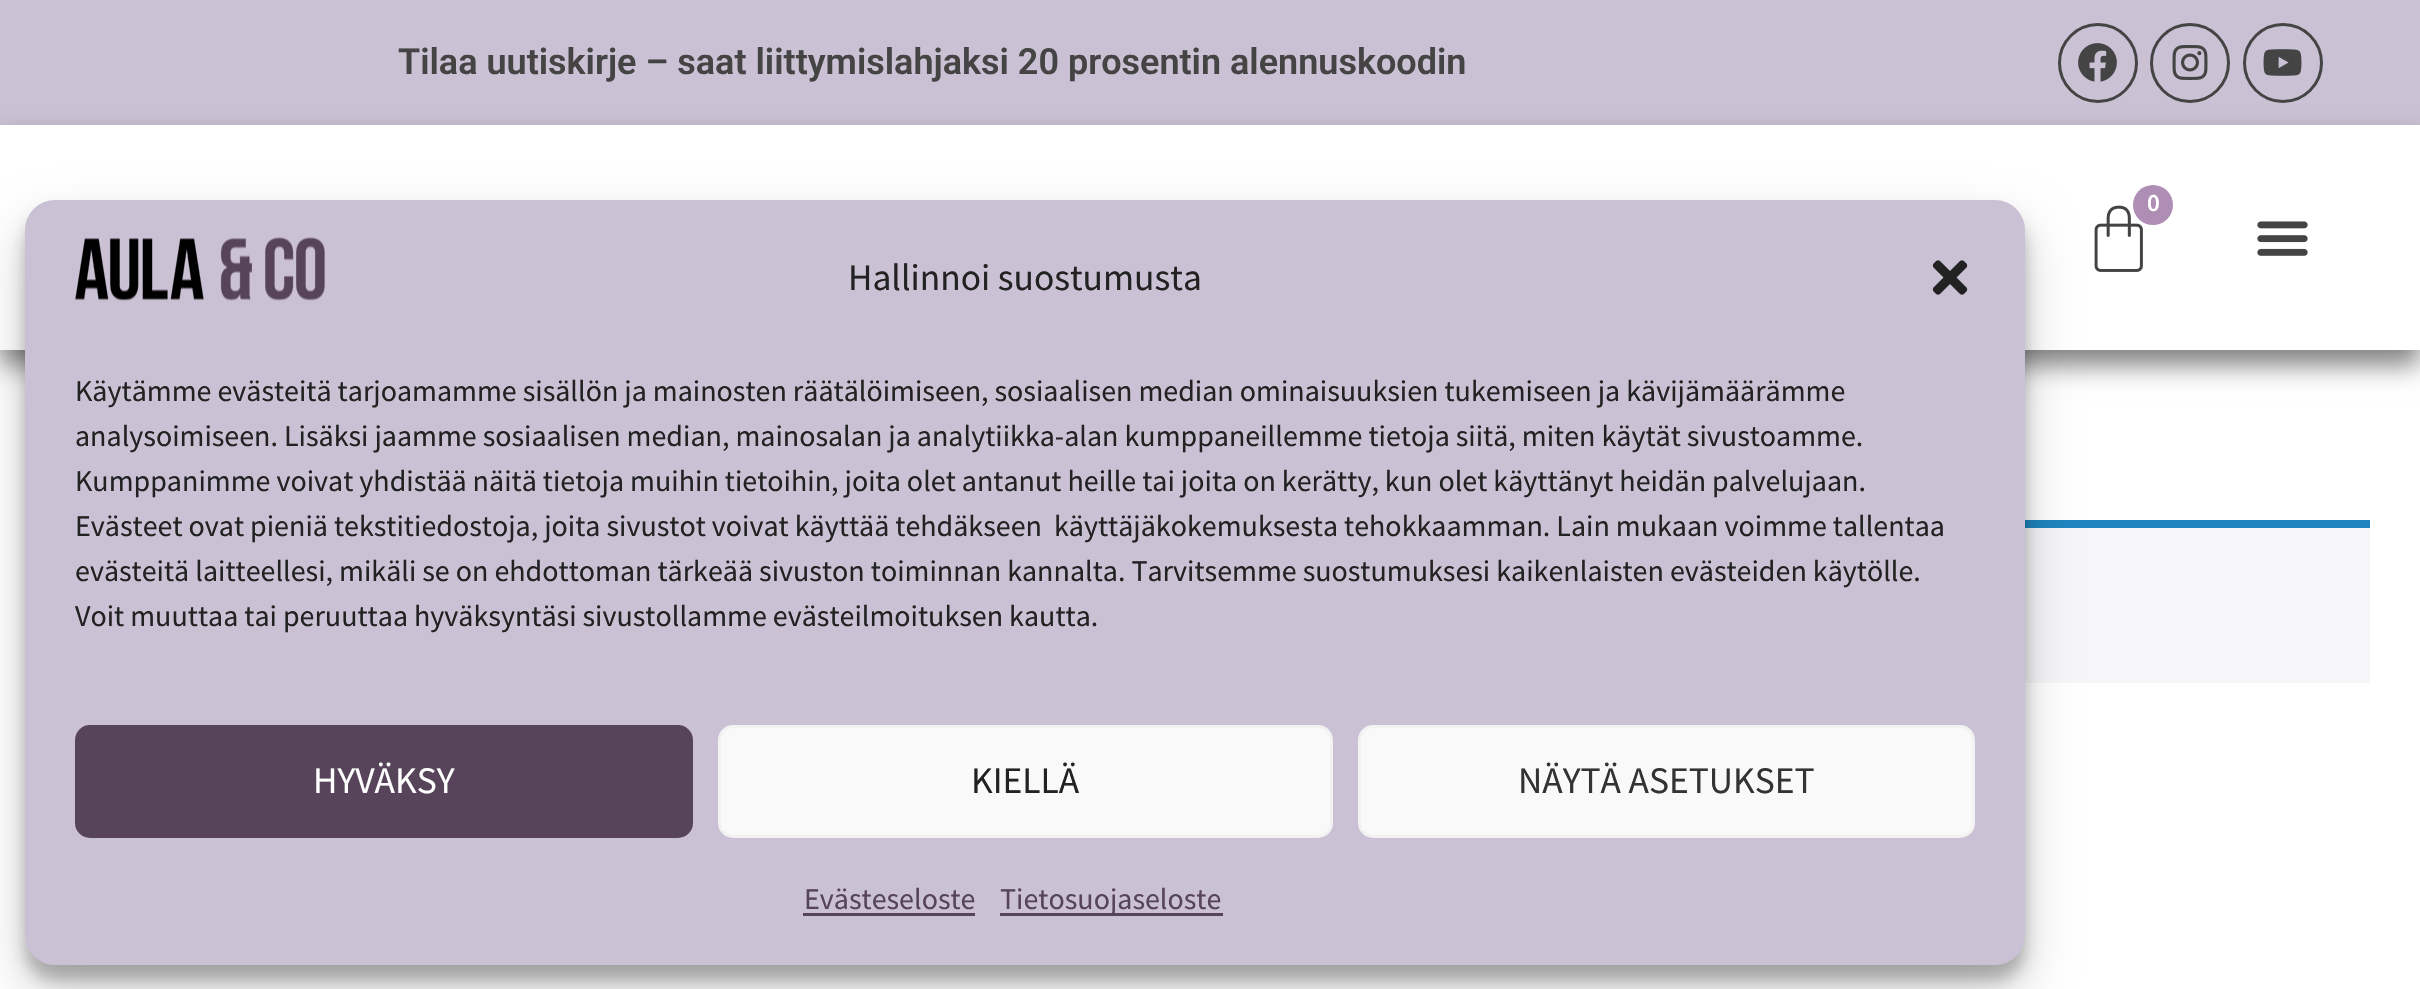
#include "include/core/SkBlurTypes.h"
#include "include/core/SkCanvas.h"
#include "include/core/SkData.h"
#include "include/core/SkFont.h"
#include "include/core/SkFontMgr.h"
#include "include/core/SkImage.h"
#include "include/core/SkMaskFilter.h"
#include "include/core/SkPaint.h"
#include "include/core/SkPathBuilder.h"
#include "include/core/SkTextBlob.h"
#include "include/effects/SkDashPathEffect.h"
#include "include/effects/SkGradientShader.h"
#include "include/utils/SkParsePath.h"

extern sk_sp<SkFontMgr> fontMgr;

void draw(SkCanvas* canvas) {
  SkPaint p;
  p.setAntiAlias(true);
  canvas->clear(SK_ColorWHITE);
  p.setColor(SkColorSetRGB(203, 193, 212));
  canvas->drawRect(SkRect::MakeLTRB(0, 0, 2420, 125), p);
  p.setStyle(SkPaint::kStroke_Style);
  p.setStrokeWidth(3);
  p.setColor(SkColorSetRGB(68, 68, 68));
  canvas->drawCircle(2098, 63, 38.5f, p);
  canvas->drawImageRect(SkImages::DeferredFromEncodedData(SkData::MakeFromFileName("images/1.png")), SkRect::MakeLTRB(2078, 43, 2117, 82), SkSamplingOptions());
  canvas->drawCircle(2190, 63, 38.5f, p);
  canvas->drawImageRect(SkImages::DeferredFromEncodedData(SkData::MakeFromFileName("images/2.png")), SkRect::MakeLTRB(2172, 45, 2208, 80), SkSamplingOptions());
  canvas->drawCircle(2283, 63, 38.5f, p);
  canvas->drawImageRect(SkImages::DeferredFromEncodedData(SkData::MakeFromFileName("images/3.png")), SkRect::MakeLTRB(2263, 49, 2302, 76), SkSamplingOptions());
  canvas->save();
  canvas->clipPath(SkPathBuilder(SkPathFillType::kEvenOdd).moveTo(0, 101).lineTo(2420, 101).lineTo(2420, 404).lineTo(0, 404).close().moveTo(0, 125).lineTo(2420, 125).lineTo(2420, 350).lineTo(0, 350).close().detach(), true);
  p.setStyle(SkPaint::kFill_Style);
  p.setColor(SkColorSetARGB(128, 0, 0, 0));
  p.setMaskFilter(SkMaskFilter::MakeBlur(kNormal_SkBlurStyle, 12.5f));
  canvas->drawRect(SkRect::MakeLTRB(0, 140, 2420, 365), p);
  p.setMaskFilter(nullptr);
  canvas->restore();
  canvas->drawImageRect(SkImages::DeferredFromEncodedData(SkData::MakeFromFileName("images/4.png")), SkRect::MakeLTRB(2094, 205, 2143, 272), SkSamplingOptions());
  p.setColor(SkColorSetRGB(175, 142, 181));
  canvas->drawCircle(2153, 205, 20, p);
  canvas->drawImageRect(SkImages::DeferredFromEncodedData(SkData::MakeFromFileName("images/5.png")), SkRect::MakeLTRB(2257, 221, 2308, 256), SkSamplingOptions());
  p.setColor(SkColorSetRGB(246, 245, 248));
  canvas->drawRect(SkRect::MakeLTRB(2025, 528, 2370, 683), p);
  p.setColor(SkColorSetRGB(30, 133, 190));
  canvas->drawRect(SkRect::MakeLTRB(2025, 520, 2370, 528), p);
  p.setColor(SkColorSetARGB(59, 0, 0, 0));
  p.setMaskFilter(SkMaskFilter::MakeBlur(kNormal_SkBlurStyle, 7.5f));
  canvas->drawRoundRect(SkRect::MakeLTRB(25, 215, 2025, 980), 30, 30, p);
  p.setMaskFilter(nullptr);
  p.setColor(SkColorSetARGB(48, 0, 0, 0));
  p.setMaskFilter(SkMaskFilter::MakeBlur(kNormal_SkBlurStyle, 25));
  canvas->drawRoundRect(SkRect::MakeLTRB(25, 225, 2025, 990), 30, 30, p);
  p.setMaskFilter(nullptr);
  p.setColor(SkColorSetRGB(203, 193, 212));
  canvas->drawRoundRect(SkRect::MakeLTRB(25, 200, 2025, 965), 30, 30, p);
  canvas->drawImageRect(SkImages::DeferredFromEncodedData(SkData::MakeFromFileName("images/6.png")), SkRect::MakeLTRB(75, 237, 325, 301), SkSamplingOptions());
  canvas->drawImageRect(SkImages::DeferredFromEncodedData(SkData::MakeFromFileName("images/7.png")), SkRect::MakeLTRB(1932, 260, 1968, 295), SkSamplingOptions());
  p.setColor(SkColorSetRGB(87, 68, 90));
  canvas->drawRoundRect(SkRect::MakeLTRB(76.5f, 726.5f, 691.5f, 836.5f), 13.5f, 13.5f, p);
  p.setStyle(SkPaint::kStroke_Style);
  canvas->drawRoundRect(SkRect::MakeLTRB(76.5f, 726.5f, 691.5f, 836.5f), 13.5f, 13.5f, p);
  p.setStyle(SkPaint::kFill_Style);
  p.setColor(SkColorSetRGB(249, 249, 249));
  canvas->drawRoundRect(SkRect::MakeLTRB(719.5f, 726.5f, 1331.5f, 836.5f), 13.5f, 13.5f, p);
  p.setStyle(SkPaint::kStroke_Style);
  p.setColor(SkColorSetRGB(242, 242, 242));
  canvas->drawRoundRect(SkRect::MakeLTRB(719.5f, 726.5f, 1331.5f, 836.5f), 13.5f, 13.5f, p);
  p.setStyle(SkPaint::kFill_Style);
  p.setColor(SkColorSetRGB(249, 249, 249));
  canvas->drawRoundRect(SkRect::MakeLTRB(1359.5f, 726.5f, 1973.5f, 836.5f), 13.5f, 13.5f, p);
  p.setStyle(SkPaint::kStroke_Style);
  p.setColor(SkColorSetRGB(242, 242, 242));
  canvas->drawRoundRect(SkRect::MakeLTRB(1359.5f, 726.5f, 1973.5f, 836.5f), 13.5f, 13.5f, p);
  p.setStyle(SkPaint::kFill_Style);
  p.setColor(SkColorSetRGB(87, 68, 90));
  canvas->drawRect(SkRect::MakeLTRB(803, 913, 975, 916), p);
  canvas->drawRect(SkRect::MakeLTRB(1000, 913, 1223, 916), p);
  SkFont font1(fontMgr->matchFamilyStyle("Roboto", SkFontStyle(600, SkFontStyle::kNormal_Width, SkFontStyle::kUpright_Slant)), 36);
  font1.setSubpixel(true);
  p.setColor(SkColorSetRGB(68, 68, 68));
  canvas->drawString("Tilaa uutiskirje – saat liittymislahjaksi 20 prosentin alennuskoodin", 398, 74, font1, p);
  SkFont font2(fontMgr->matchFamilyStyle("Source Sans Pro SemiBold", SkFontStyle(600, SkFontStyle::kNormal_Width, SkFontStyle::kUpright_Slant)), 25);
  font2.setSubpixel(true);
  p.setColor(SK_ColorWHITE);
  canvas->drawString("0", 2147, 211, font2, p);
  SkFont font3(fontMgr->matchFamilyStyle("Source Sans Pro", SkFontStyle::Normal()), 37.5f);
  font3.setSubpixel(true);
  p.setColor(SkColorSetRGB(34, 34, 34));
  canvas->drawString("Hallinnoi suostumusta", 848, 290, font3, p);
  SkFont font4(fontMgr->matchFamilyStyle("Source Sans Pro", SkFontStyle::Normal()), 30);
  font4.setSubpixel(true);
  canvas->drawString("Käytämme evästeitä tarjoamamme sisällön ja mainosten räätälöimiseen, sosiaalisen median ominaisuuksien tukemiseen ja kävijämäärämme", 75, 401, font4, p);
  canvas->drawString("analysoimiseen. Lisäksi jaamme sosiaalisen median, mainosalan ja analytiikka-alan kumppaneillemme tietoja siitä, miten käytät sivustoamme.", 75, 446, font4, p);
  canvas->drawString("Kumppanimme voivat yhdistää näitä tietoja muihin tietoihin, joita olet antanut heille tai joita on kerätty, kun olet käyttänyt heidän palvelujaan.", 75, 491, font4, p);
  canvas->drawString("Evästeet ovat pieniä tekstitiedostoja, joita sivustot voivat käyttää tehdäkseen  käyttäjäkokemuksesta tehokkaamman. Lain mukaan voimme tallentaa", 75, 536, font4, p);
  canvas->drawString("evästeitä laitteellesi, mikäli se on ehdottoman tärkeää sivuston toiminnan kannalta. Tarvitsemme suostumuksesi kaikenlaisten evästeiden käytölle.", 75, 581, font4, p);
  canvas->drawString("Voit muuttaa tai peruuttaa hyväksyntäsi sivustollamme evästeilmoituksen kautta.", 75, 626, font4, p);
  p.setColor(SK_ColorWHITE);
  canvas->drawString("HYVÄKSY", 313, 793, font3, p);
  p.setColor(SkColorSetRGB(34, 34, 34));
  canvas->drawString("KIELLÄ", 971, 793, font3, p);
  p.setColor(SkColorSetRGB(51, 51, 51));
  canvas->drawString("NÄYTÄ ASETUKSET", 1518, 793, font3, p);
  p.setColor(SkColorSetRGB(87, 68, 90));
  canvas->drawString("Evästeseloste", 804, 909, font4, p);
  canvas->drawString("Tietosuojaseloste", 1000, 909, font4, p);
}
